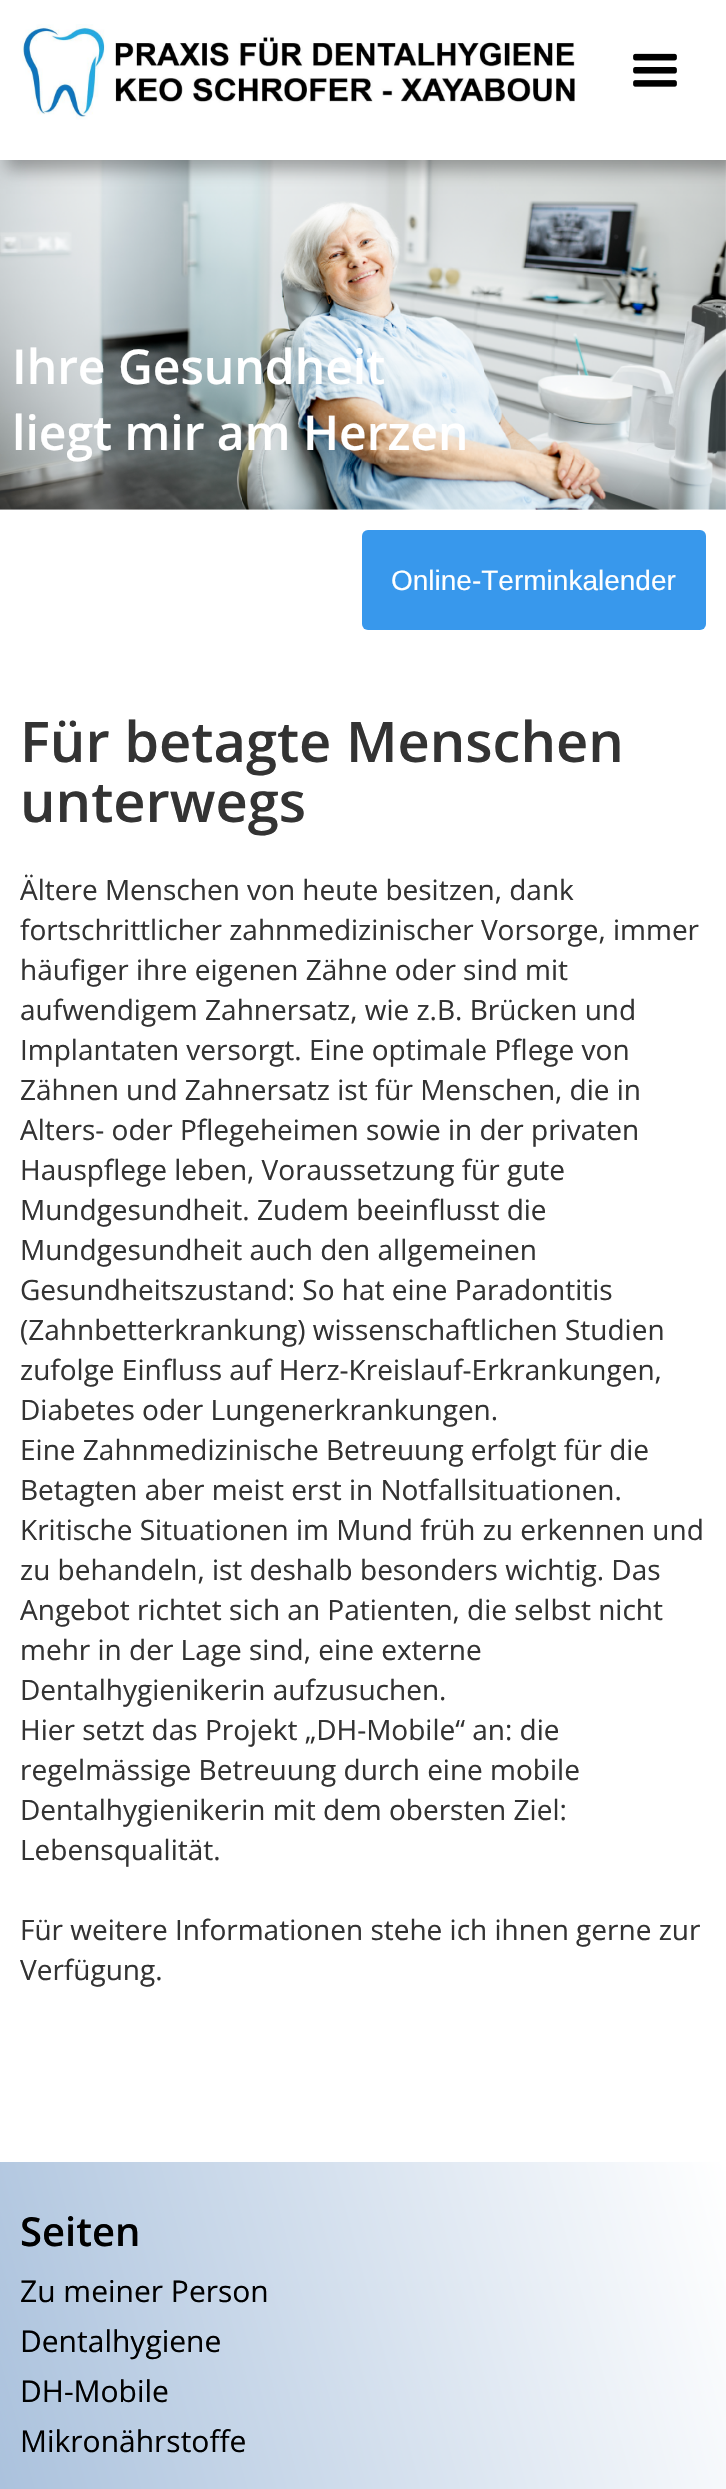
#include "include/core/SkBlurTypes.h"
#include "include/core/SkCanvas.h"
#include "include/core/SkData.h"
#include "include/core/SkFont.h"
#include "include/core/SkFontMgr.h"
#include "include/core/SkImage.h"
#include "include/core/SkMaskFilter.h"
#include "include/core/SkPaint.h"
#include "include/core/SkPathBuilder.h"
#include "include/core/SkTextBlob.h"
#include "include/effects/SkDashPathEffect.h"
#include "include/effects/SkGradientShader.h"
#include "include/utils/SkParsePath.h"

extern sk_sp<SkFontMgr> fontMgr;

void draw(SkCanvas* canvas) {
  SkPaint p;
  p.setAntiAlias(true);
  canvas->clear(SK_ColorWHITE);
  canvas->drawImageRect(SkImages::DeferredFromEncodedData(SkData::MakeFromFileName("images/3.png")), SkRect::MakeLTRB(0, 160, 726, 510), SkSamplingOptions());
  p.setColor(SkColorSetARGB(82, 0, 0, 0));
  p.setMaskFilter(SkMaskFilter::MakeBlur(kNormal_SkBlurStyle, 8));
  canvas->drawRect(SkRect::MakeLTRB(6, 6, 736, 170), p);
  p.setMaskFilter(nullptr);
  p.setColor(SK_ColorWHITE);
  canvas->drawRect(SkRect::MakeLTRB(0, 0, 726, 160), p);
  canvas->drawImageRect(SkImages::DeferredFromEncodedData(SkData::MakeFromFileName("images/1.png")), SkRect::MakeLTRB(20, 24, 575, 120), SkSamplingOptions());
  canvas->drawImageRect(SkImages::DeferredFromEncodedData(SkData::MakeFromFileName("images/2.png")), SkRect::MakeLTRB(633, 53, 677, 87), SkSamplingOptions());
  p.setColor(SkColorSetRGB(56, 152, 236));
  canvas->drawRoundRect(SkRect::MakeLTRB(362, 530, 706, 630), 6, 6, p);
  {
    const SkColor colors[] = {SkColorSetRGB(149, 178, 212), SK_ColorWHITE};
    const float stops[] = {0, 1};
    const SkPoint ends[] = {{-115, 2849}, {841, 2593}};
    p.setShader(SkGradientShader::MakeLinear(ends, colors, stops, 2, SkTileMode::kClamp));
    p.setAlpha(255);
  }
  canvas->drawRect(SkRect::MakeLTRB(0, 2162, 726, 2489), p);
  SkFont font1(fontMgr->matchFamilyStyle("Open Sans", SkFontStyle(600, SkFontStyle::kNormal_Width, SkFontStyle::kUpright_Slant)), 48);
  font1.setSubpixel(true);
  p.setShader(nullptr);
  p.setColor(SK_ColorWHITE);
  canvas->drawString("Ihre Gesundheit", 12, 384, font1, p);
  canvas->drawString("liegt mir am Herzen", 12, 450, font1, p);
  SkFont font2(fontMgr->matchFamilyStyle("Liberation Sans", SkFontStyle::Normal()), 28);
  font2.setSubpixel(true);
  canvas->drawString("Online-Terminkalender", 391, 590, font2, p);
  SkFont font3(fontMgr->matchFamilyStyle("Open Sans", SkFontStyle(600, SkFontStyle::kNormal_Width, SkFontStyle::kUpright_Slant)), 56);
  font3.setSubpixel(true);
  p.setColor(SkColorSetRGB(51, 51, 51));
  canvas->drawString("Für betagte Menschen", 20, 762, font3, p);
  canvas->drawString("unterwegs", 20, 822, font3, p);
  SkFont font4(fontMgr->matchFamilyStyle("Open Sans", SkFontStyle::Normal()), 28);
  font4.setSubpixel(true);
  canvas->drawString("Ältere Menschen von heute besitzen, dank", 20, 900, font4, p);
  canvas->drawString("fortschrittlicher zahnmedizinischer Vorsorge, immer", 20, 940, font4, p);
  canvas->drawString("häufiger ihre eigenen Zähne oder sind mit", 20, 980, font4, p);
  canvas->drawString("aufwendigem Zahnersatz, wie z.B. Brücken und", 20, 1020, font4, p);
  canvas->drawString("Implantaten versorgt. Eine optimale Pflege von", 20, 1060, font4, p);
  canvas->drawString("Zähnen und Zahnersatz ist für Menschen, die in", 20, 1100, font4, p);
  canvas->drawString("Alters- oder Pflegeheimen sowie in der privaten", 20, 1140, font4, p);
  canvas->drawString("Hauspflege leben, Voraussetzung für gute", 20, 1180, font4, p);
  canvas->drawString("Mundgesundheit. Zudem beeinflusst die", 20, 1220, font4, p);
  canvas->drawString("Mundgesundheit auch den allgemeinen", 20, 1260, font4, p);
  canvas->drawString("Gesundheitszustand: So hat eine Paradontitis", 20, 1300, font4, p);
  canvas->drawString("(Zahnbetterkrankung) wissenschaftlichen Studien", 20, 1340, font4, p);
  canvas->drawString("zufolge Einfluss auf Herz-Kreislauf-Erkrankungen,", 20, 1380, font4, p);
  canvas->drawString("Diabetes oder Lungenerkrankungen.", 20, 1420, font4, p);
  canvas->drawString("Eine Zahnmedizinische Betreuung erfolgt für die", 20, 1460, font4, p);
  canvas->drawString("Betagten aber meist erst in Notfallsituationen.", 20, 1500, font4, p);
  canvas->drawString("Kritische Situationen im Mund früh zu erkennen und", 20, 1540, font4, p);
  canvas->drawString("zu behandeln, ist deshalb besonders wichtig. Das", 20, 1580, font4, p);
  canvas->drawString("Angebot richtet sich an Patienten, die selbst nicht", 20, 1620, font4, p);
  canvas->drawString("mehr in der Lage sind, eine externe", 20, 1660, font4, p);
  canvas->drawString("Dentalhygienikerin aufzusuchen.", 20, 1700, font4, p);
  canvas->drawString("Hier setzt das Projekt „DH-Mobile“ an: die", 20, 1740, font4, p);
  canvas->drawString("regelmässige Betreuung durch eine mobile", 20, 1780, font4, p);
  canvas->drawString("Dentalhygienikerin mit dem obersten Ziel:", 20, 1820, font4, p);
  canvas->drawString("Lebensqualität.", 20, 1860, font4, p);
  canvas->drawString("Für weitere Informationen stehe ich ihnen gerne zur", 20, 1940, font4, p);
  canvas->drawString("Verfügung.", 20, 1980, font4, p);
  SkFont font5(fontMgr->matchFamilyStyle("Open Sans", SkFontStyle(600, SkFontStyle::kNormal_Width, SkFontStyle::kUpright_Slant)), 40);
  font5.setSubpixel(true);
  p.setColor(SK_ColorBLACK);
  canvas->drawString("Seiten", 20, 2246, font5, p);
  SkFont font6(fontMgr->matchFamilyStyle("Open Sans", SkFontStyle::Normal()), 30);
  font6.setSubpixel(true);
  canvas->drawString("Zu meiner Person", 20, 2302, font6, p);
  canvas->drawString("Dentalhygiene", 20, 2352, font6, p);
  canvas->drawString("DH-Mobile", 20, 2402, font6, p);
  canvas->drawString("Mikronährstoffe", 20, 2452, font6, p);
}
